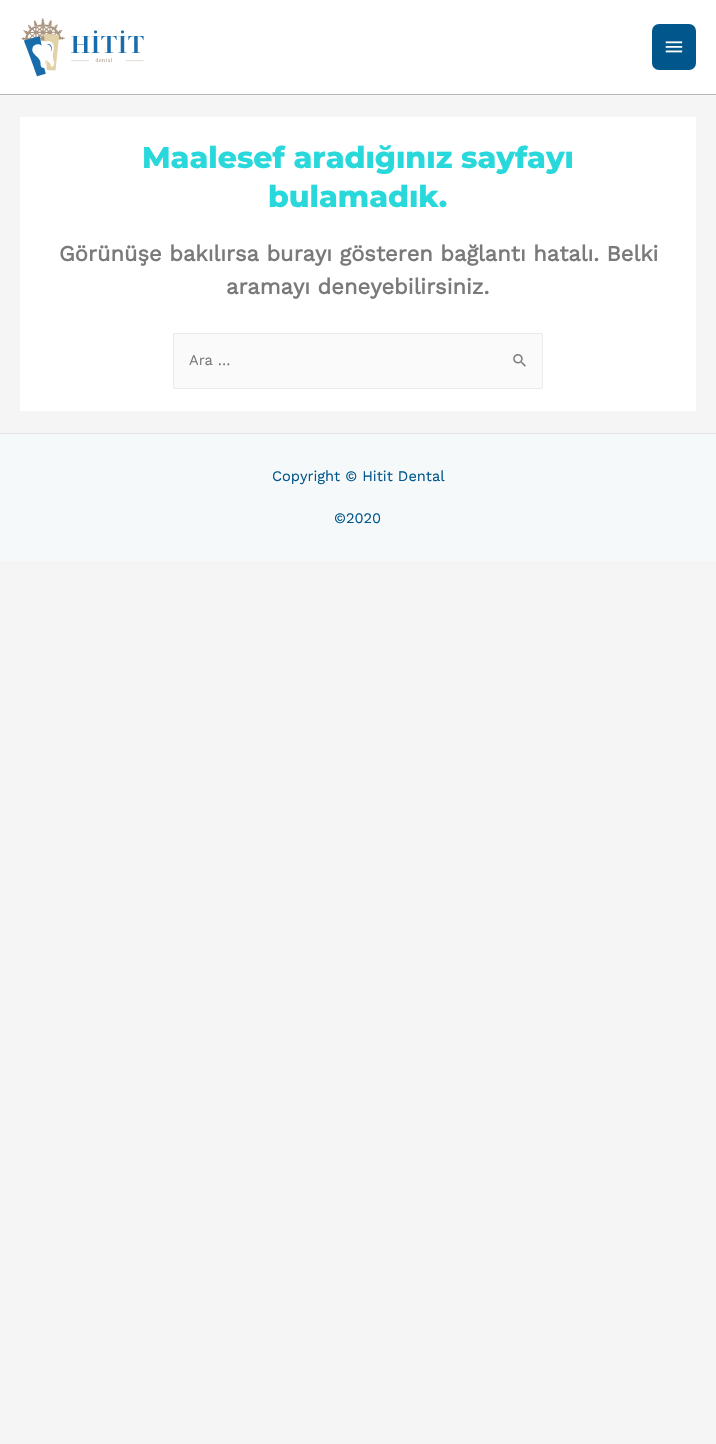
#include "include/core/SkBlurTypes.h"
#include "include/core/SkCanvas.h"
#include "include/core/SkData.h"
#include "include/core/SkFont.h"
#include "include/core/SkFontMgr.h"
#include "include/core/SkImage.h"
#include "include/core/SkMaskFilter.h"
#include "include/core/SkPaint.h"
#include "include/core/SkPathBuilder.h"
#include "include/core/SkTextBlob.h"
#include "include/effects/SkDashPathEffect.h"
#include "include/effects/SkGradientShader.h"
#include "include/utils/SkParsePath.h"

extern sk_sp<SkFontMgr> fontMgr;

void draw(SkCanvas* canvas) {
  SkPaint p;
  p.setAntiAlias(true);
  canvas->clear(SkColorSetRGB(245, 245, 245));
  p.setColor(SK_ColorWHITE);
  canvas->drawRect(SkRect::MakeLTRB(0, 0, 716, 94), p);
  p.setColor(SkColorSetRGB(183, 183, 183));
  canvas->drawRect(SkRect::MakeLTRB(0, 94, 716, 95), p);
  canvas->drawImageRect(SkImages::DeferredFromEncodedData(SkData::MakeFromFileName("images/1.png")), SkRect::MakeLTRB(21, 18, 144, 77), SkSamplingOptions());
  p.setColor(SkColorSetRGB(1, 87, 140));
  canvas->drawRoundRect(SkRect::MakeLTRB(652, 24, 696, 70), 7, 7, p);
  canvas->drawImageRect(SkImages::DeferredFromEncodedData(SkData::MakeFromFileName("images/2.png")), SkRect::MakeLTRB(665, 41, 683, 53), SkSamplingOptions());
  p.setColor(SK_ColorWHITE);
  canvas->drawRect(SkRect::MakeLTRB(20, 117, 696, 411), p);
  p.setColor(SkColorSetRGB(250, 250, 250));
  canvas->drawRoundRect(SkRect::MakeLTRB(173.5f, 333.5f, 542.5f, 388.5f), 1.5f, 1.5f, p);
  p.setStyle(SkPaint::kStroke_Style);
  p.setStrokeWidth(1);
  p.setColor(SkColorSetRGB(234, 234, 234));
  canvas->drawRoundRect(SkRect::MakeLTRB(173.5f, 333.5f, 542.5f, 388.5f), 1.5f, 1.5f, p);
  canvas->drawImageRect(SkImages::DeferredFromEncodedData(SkData::MakeFromFileName("images/3.png")), SkRect::MakeLTRB(513, 354, 526, 367), SkSamplingOptions());
  p.setStyle(SkPaint::kFill_Style);
  p.setColor(SkColorSetRGB(226, 226, 226));
  canvas->drawRect(SkRect::MakeLTRB(0, 433, 716, 434), p);
  p.setColor(SkColorSetRGB(246, 249, 249));
  canvas->drawRect(SkRect::MakeLTRB(0, 434, 716, 561), p);
  SkFont font1(fontMgr->matchFamilyStyle("Montserrat", SkFontStyle(100, SkFontStyle::kNormal_Width, SkFontStyle::kUpright_Slant)), 30);
  font1.setSubpixel(true);
  p.setColor(SkColorSetRGB(41, 216, 219));
  canvas->drawString("Maalesef aradığınız sayfayı", 142, 168, font1, p);
  canvas->drawString("bulamadık.", 268, 207, font1, p);
  SkFont font2(fontMgr->matchFamilyStyle("Work Sans", SkFontStyle::Bold()), 21.9f);
  font2.setSubpixel(true);
  p.setColor(SkColorSetRGB(122, 122, 122));
  canvas->drawString("Görünüşe bakılırsa burayı gösteren bağlantı hatalı. Belki", 59, 261, font2, p);
  canvas->drawString("aramayı deneyebilirsiniz.", 226, 294, font2, p);
  SkFont font3(fontMgr->matchFamilyStyle("Work Sans", SkFontStyle::Normal()), 14.6f);
  font3.setSubpixel(true);
  canvas->drawString("Ara …", 189, 365, font3, p);
  p.setColor(SkColorSetRGB(1, 87, 140));
  canvas->drawString("Copyright © Hitit Dental", 272, 481, font3, p);
  canvas->drawString("©2020", 334, 523, font3, p);
}
